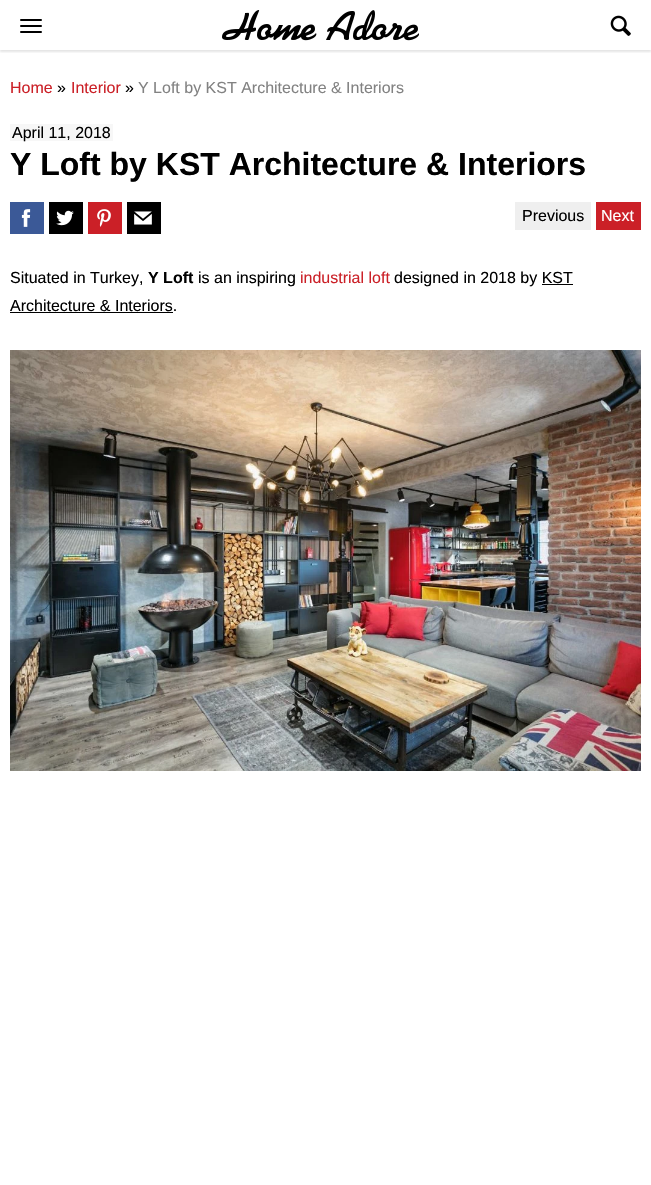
#include "include/core/SkBlurTypes.h"
#include "include/core/SkCanvas.h"
#include "include/core/SkData.h"
#include "include/core/SkFont.h"
#include "include/core/SkFontMgr.h"
#include "include/core/SkImage.h"
#include "include/core/SkMaskFilter.h"
#include "include/core/SkPaint.h"
#include "include/core/SkPathBuilder.h"
#include "include/core/SkTextBlob.h"
#include "include/effects/SkDashPathEffect.h"
#include "include/effects/SkGradientShader.h"
#include "include/utils/SkParsePath.h"

extern sk_sp<SkFontMgr> fontMgr;

void draw(SkCanvas* canvas) {
  SkPaint p;
  p.setAntiAlias(true);
  canvas->clear(SK_ColorWHITE);
  canvas->save();
  canvas->clipRect(SkRect::MakeLTRB(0, 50, 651, 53));
  p.setColor(SkColorSetARGB(26, 0, 0, 0));
  p.setMaskFilter(SkMaskFilter::MakeBlur(kNormal_SkBlurStyle, 1));
  canvas->drawRect(SkRect::MakeLTRB(0, 2, 651, 52), p);
  p.setMaskFilter(nullptr);
  canvas->restore();
  p.setColor(SK_ColorBLACK);
  canvas->drawRoundRect(SkRect::MakeLTRB(20, 19, 42, 21), 1, 1, p);
  canvas->drawRoundRect(SkRect::MakeLTRB(20, 25, 42, 27), 1, 1, p);
  canvas->drawRoundRect(SkRect::MakeLTRB(20, 31, 42, 33), 1, 1, p);
  canvas->drawImageRect(SkImages::DeferredFromEncodedData(SkData::MakeFromFileName("images/1.png")), SkRect::MakeLTRB(222, 10, 419, 41), SkSamplingOptions());
  canvas->drawImageRect(SkImages::DeferredFromEncodedData(SkData::MakeFromFileName("images/2.png")), SkRect::MakeLTRB(610, 15, 631, 36), SkSamplingOptions());
  p.setColor(SkColorSetRGB(247, 247, 247));
  canvas->drawRect(SkRect::MakeLTRB(10, 124, 113, 141), p);
  p.setColor(SkColorSetRGB(59, 89, 151));
  canvas->drawRect(SkRect::MakeLTRB(10, 202, 44, 234), p);
  canvas->drawImageRect(SkImages::DeferredFromEncodedData(SkData::MakeFromFileName("images/3.png")), SkRect::MakeLTRB(21, 209, 31, 227), SkSamplingOptions());
  p.setColor(SK_ColorBLACK);
  canvas->drawRect(SkRect::MakeLTRB(49, 202, 83, 234), p);
  canvas->drawImageRect(SkImages::DeferredFromEncodedData(SkData::MakeFromFileName("images/4.png")), SkRect::MakeLTRB(56, 210, 74, 226), SkSamplingOptions());
  p.setColor(SkColorSetRGB(203, 32, 39));
  canvas->drawRect(SkRect::MakeLTRB(88, 202, 122, 234), p);
  canvas->drawImageRect(SkImages::DeferredFromEncodedData(SkData::MakeFromFileName("images/5.png")), SkRect::MakeLTRB(97, 209, 111, 227), SkSamplingOptions());
  p.setColor(SK_ColorBLACK);
  canvas->drawRect(SkRect::MakeLTRB(127, 202, 161, 234), p);
  canvas->drawImageRect(SkImages::DeferredFromEncodedData(SkData::MakeFromFileName("images/6.png")), SkRect::MakeLTRB(134, 211, 152, 225), SkSamplingOptions());
  p.setColor(SkColorSetRGB(239, 239, 239));
  canvas->drawRect(SkRect::MakeLTRB(515, 202, 591, 230), p);
  p.setColor(SkColorSetRGB(203, 32, 39));
  canvas->drawRect(SkRect::MakeLTRB(596, 202, 641, 230), p);
  p.setColor(SK_ColorBLACK);
  canvas->drawRect(SkRect::MakeLTRB(542, 284, 573, 285), p);
  canvas->drawRect(SkRect::MakeLTRB(10, 312, 173, 313), p);
  canvas->drawImageRect(SkImages::DeferredFromEncodedData(SkData::MakeFromFileName("images/7.png")), SkRect::MakeLTRB(10, 350, 641, 771), SkSamplingOptions());
  SkFont font1(fontMgr->matchFamilyStyle("Liberation Sans", SkFontStyle::Normal()), 16);
  font1.setSubpixel(true);
  p.setColor(SkColorSetRGB(203, 32, 39));
  canvas->drawString("Home", 10, 93, font1, p);
  p.setColor(SK_ColorBLACK);
  canvas->drawString("»", 57, 93, font1, p);
  p.setColor(SkColorSetRGB(203, 32, 39));
  canvas->drawString("Interior", 71, 93, font1, p);
  p.setColor(SK_ColorBLACK);
  canvas->drawString("»", 125, 93, font1, p);
  p.setColor(SkColorSetRGB(130, 130, 130));
  canvas->drawString("Y Loft by KST Architecture & Interiors", 138, 93, font1, p);
  p.setColor(SK_ColorBLACK);
  canvas->drawString("April 11, 2018", 12, 138, font1, p);
  SkFont font2(fontMgr->matchFamilyStyle("Liberation Sans", SkFontStyle::Bold()), 32);
  font2.setSubpixel(true);
  canvas->drawString("Y Loft by KST Architecture & Interiors", 10, 175, font2, p);
  canvas->drawString("Previous", 522, 221, font1, p);
  p.setColor(SK_ColorWHITE);
  canvas->drawString("Next", 601, 221, font1, p);
  p.setColor(SK_ColorBLACK);
  canvas->drawString("Situated in Turkey,", 10, 283, font1, p);
  SkFont font3(fontMgr->matchFamilyStyle("Liberation Sans", SkFontStyle::Bold()), 16);
  font3.setSubpixel(true);
  canvas->drawString("Y Loft", 148, 283, font3, p);
  canvas->drawString("is an inspiring", 198, 283, font1, p);
  p.setColor(SkColorSetRGB(203, 32, 39));
  canvas->drawString("industrial loft", 300, 283, font1, p);
  p.setColor(SK_ColorBLACK);
  canvas->drawString("designed in 2018 by KST", 394, 283, font1, p);
  canvas->drawString("Architecture & Interiors.", 10, 311, font1, p);
}
